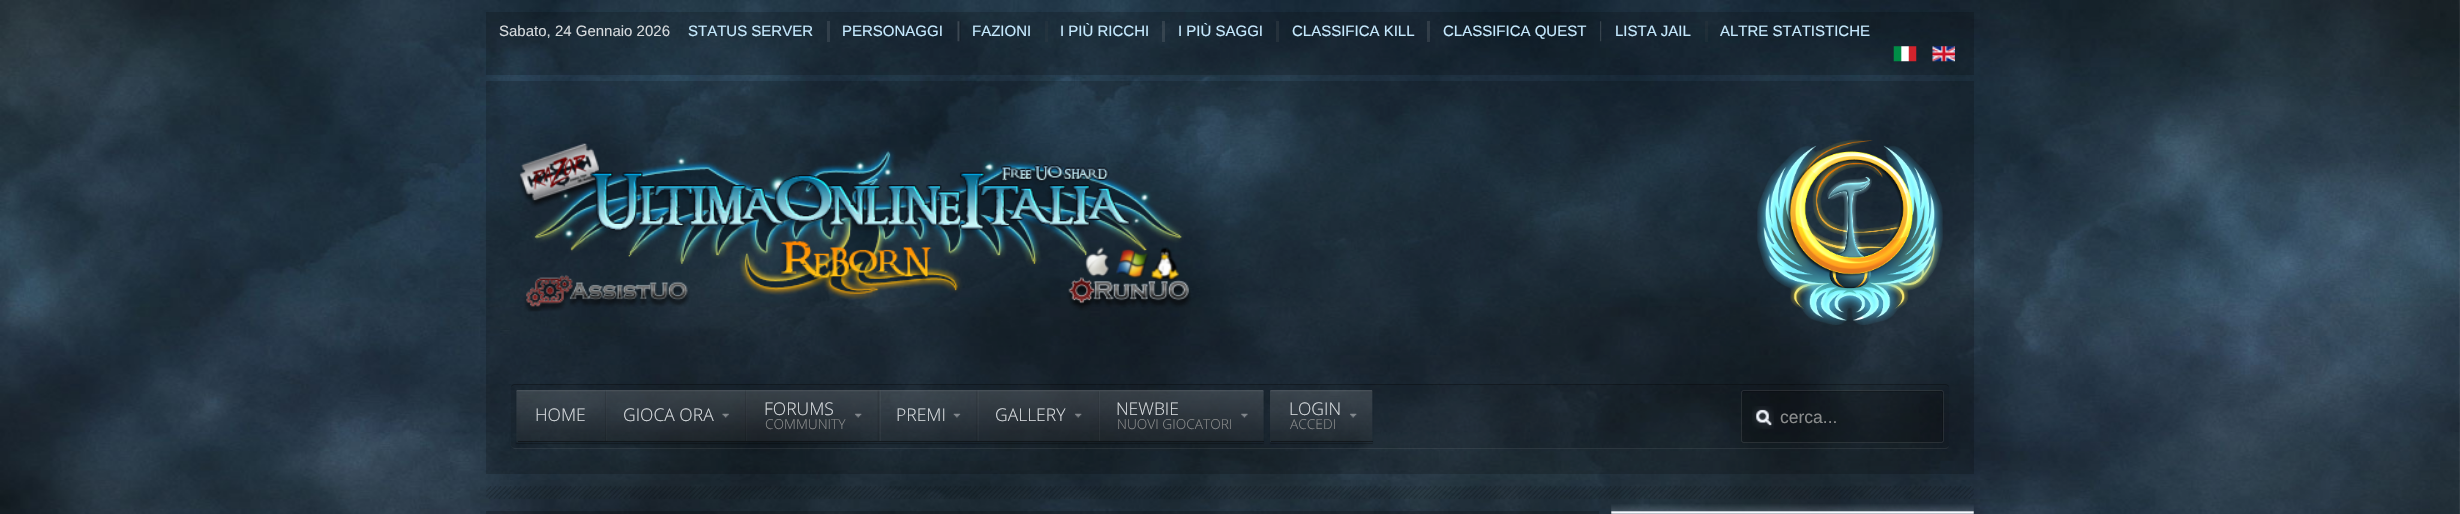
#include "include/core/SkBlurTypes.h"
#include "include/core/SkCanvas.h"
#include "include/core/SkData.h"
#include "include/core/SkFont.h"
#include "include/core/SkFontMgr.h"
#include "include/core/SkImage.h"
#include "include/core/SkMaskFilter.h"
#include "include/core/SkPaint.h"
#include "include/core/SkPathBuilder.h"
#include "include/core/SkTextBlob.h"
#include "include/effects/SkDashPathEffect.h"
#include "include/effects/SkGradientShader.h"
#include "include/utils/SkParsePath.h"

extern sk_sp<SkFontMgr> fontMgr;

void draw(SkCanvas* canvas) {
  SkPaint p;
  p.setAntiAlias(true);
  canvas->clear(SK_ColorWHITE);
  canvas->drawImageRect(SkImages::DeferredFromEncodedData(SkData::MakeFromFileName("images/1.png")), SkRect::MakeLTRB(0, 0, 2460, 514), SkSamplingOptions());
  p.setColor(SkColorSetARGB(51, 0, 0, 0));
  canvas->drawRect(SkRect::MakeLTRB(486, 12, 1974, 75), p);
  p.setColor(SkColorSetRGB(50, 63, 74));
  canvas->drawRect(SkRect::MakeLTRB(827, 21, 830, 42), p);
  canvas->drawImageRect(SkImages::DeferredFromEncodedData(SkData::MakeFromFileName("images/2.png")), SkRect::MakeLTRB(957, 21, 961, 42), SkSamplingOptions());
  p.setColor(SkColorSetARGB(38, 74, 74, 74));
  canvas->drawRect(SkRect::MakeLTRB(1045, 21, 1048, 42), p);
  p.setColor(SkColorSetARGB(38, 188, 188, 188));
  canvas->drawRect(SkRect::MakeLTRB(1162, 21, 1165, 42), p);
  p.setColor(SkColorSetRGB(37, 49, 59));
  canvas->drawRect(SkRect::MakeLTRB(1276, 21, 1279, 42), p);
  p.setColor(SkColorSetARGB(38, 188, 188, 188));
  canvas->drawRect(SkRect::MakeLTRB(1427, 21, 1430, 42), p);
  canvas->drawImageRect(SkImages::DeferredFromEncodedData(SkData::MakeFromFileName("images/3.png")), SkRect::MakeLTRB(1600, 21, 1602, 42), SkSamplingOptions());
  p.setColor(SkColorSetARGB(38, 74, 74, 74));
  canvas->drawRect(SkRect::MakeLTRB(1705, 21, 1708, 42), p);
  canvas->drawImageRect(SkImages::DeferredFromEncodedData(SkData::MakeFromFileName("images/4.png")), SkRect::MakeLTRB(1893, 46, 1917, 62), SkSamplingOptions());
  canvas->drawImageRect(SkImages::DeferredFromEncodedData(SkData::MakeFromFileName("images/5.png")), SkRect::MakeLTRB(1932, 46, 1955, 62), SkSamplingOptions());
  p.setColor(SkColorSetARGB(51, 0, 0, 0));
  canvas->drawRect(SkRect::MakeLTRB(486, 81, 1974, 474), p);
  canvas->drawImageRect(SkImages::DeferredFromEncodedData(SkData::MakeFromFileName("images/6.png")), SkRect::MakeLTRB(518, 143, 1191, 312), SkSamplingOptions());
  canvas->drawImageRect(SkImages::DeferredFromEncodedData(SkData::MakeFromFileName("images/7.png")), SkRect::MakeLTRB(1757, 139, 1943, 325), SkSamplingOptions());
  p.setColor(SkColorSetARGB(20, 0, 0, 0));
  canvas->drawRoundRect(SkRect::MakeLTRB(511, 384, 1949, 449), 4, 4, p);
  p.setColor(SkColorSetARGB(77, 0, 0, 0));
  canvas->drawPath(SkPathBuilder().moveTo(515, 384).lineTo(1945, 384).cubicTo(1947, 384, 1949, 385, 1949, 387).cubicTo(1948, 386, 1947, 385, 1945, 385).lineTo(515, 385).cubicTo(513, 385, 512, 386, 511, 387).cubicTo(511, 385, 513, 384, 515, 384).close().detach(), p);
  p.setColor(SkColorSetARGB(20, 255, 255, 255));
  canvas->drawPath(SkPathBuilder().moveTo(514, 449).cubicTo(513, 448, 511, 447, 511, 446).cubicTo(512, 447, 513, 448, 515, 448).lineTo(1945, 448).cubicTo(1947, 448, 1948, 447, 1949, 446).cubicTo(1949, 447, 1947, 449, 1946, 449).close().detach(), p);
  canvas->save();
  canvas->clipPath(SkPathBuilder(SkPathFillType::kEvenOdd).moveTo(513, 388).lineTo(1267, 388).lineTo(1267, 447).lineTo(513, 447).close().moveTo(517, 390).lineTo(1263, 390).cubicTo(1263.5f, 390, 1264, 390.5f, 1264, 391).lineTo(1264, 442).cubicTo(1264, 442.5f, 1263.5f, 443, 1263, 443).lineTo(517, 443).cubicTo(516.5f, 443, 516, 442.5f, 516, 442).lineTo(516, 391).cubicTo(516, 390.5f, 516.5f, 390, 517, 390).close().detach(), true);
  p.setColor(SkColorSetARGB(77, 0, 0, 0));
  p.setMaskFilter(SkMaskFilter::MakeBlur(kNormal_SkBlurStyle, 0.5f));
  canvas->drawRoundRect(SkRect::MakeLTRB(516, 391, 1264, 444), 1, 1, p);
  p.setMaskFilter(nullptr);
  canvas->restore();
  canvas->drawImageRect(SkImages::DeferredFromEncodedData(SkData::MakeFromFileName("images/8.png")), SkRect::MakeLTRB(516, 390, 1264, 442), SkSamplingOptions());
  p.setColor(SkColorSetARGB(115, 0, 0, 0));
  canvas->drawRect(SkRect::MakeLTRB(518, 441, 1264, 442), p);
  canvas->drawImageRect(SkImages::DeferredFromEncodedData(SkData::MakeFromFileName("images/9.png")), SkRect::MakeLTRB(605, 390, 607, 441), SkSamplingOptions());
  canvas->drawImageRect(SkImages::DeferredFromEncodedData(SkData::MakeFromFileName("images/10.png")), SkRect::MakeLTRB(722, 413, 729, 418), SkSamplingOptions());
  canvas->drawImageRect(SkImages::DeferredFromEncodedData(SkData::MakeFromFileName("images/11.png")), SkRect::MakeLTRB(745, 390, 747, 441), SkSamplingOptions());
  canvas->drawImageRect(SkImages::DeferredFromEncodedData(SkData::MakeFromFileName("images/12.png")), SkRect::MakeLTRB(855, 413, 862, 418), SkSamplingOptions());
  canvas->drawImageRect(SkImages::DeferredFromEncodedData(SkData::MakeFromFileName("images/13.png")), SkRect::MakeLTRB(877, 390, 881, 441), SkSamplingOptions());
  canvas->drawImageRect(SkImages::DeferredFromEncodedData(SkData::MakeFromFileName("images/14.png")), SkRect::MakeLTRB(953, 413, 961, 418), SkSamplingOptions());
  canvas->drawImageRect(SkImages::DeferredFromEncodedData(SkData::MakeFromFileName("images/15.png")), SkRect::MakeLTRB(976, 390, 979, 441), SkSamplingOptions());
  canvas->drawImageRect(SkImages::DeferredFromEncodedData(SkData::MakeFromFileName("images/16.png")), SkRect::MakeLTRB(1075, 413, 1082, 418), SkSamplingOptions());
  canvas->drawImageRect(SkImages::DeferredFromEncodedData(SkData::MakeFromFileName("images/17.png")), SkRect::MakeLTRB(1098, 391, 1100, 441), SkSamplingOptions());
  canvas->drawImageRect(SkImages::DeferredFromEncodedData(SkData::MakeFromFileName("images/18.png")), SkRect::MakeLTRB(1241, 413, 1248, 418), SkSamplingOptions());
  canvas->save();
  canvas->clipPath(SkPathBuilder(SkPathFillType::kEvenOdd).moveTo(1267, 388).lineTo(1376, 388).lineTo(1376, 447).lineTo(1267, 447).close().moveTo(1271, 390).lineTo(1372, 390).cubicTo(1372.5f, 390, 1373, 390.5f, 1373, 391).lineTo(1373, 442).cubicTo(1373, 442.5f, 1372.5f, 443, 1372, 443).lineTo(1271, 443).cubicTo(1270.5f, 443, 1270, 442.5f, 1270, 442).lineTo(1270, 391).cubicTo(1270, 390.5f, 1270.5f, 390, 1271, 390).close().detach(), true);
  p.setColor(SkColorSetARGB(77, 0, 0, 0));
  p.setMaskFilter(SkMaskFilter::MakeBlur(kNormal_SkBlurStyle, 0.5f));
  canvas->drawRoundRect(SkRect::MakeLTRB(1270, 391, 1373, 444), 1, 1, p);
  p.setMaskFilter(nullptr);
  canvas->restore();
  canvas->drawImageRect(SkImages::DeferredFromEncodedData(SkData::MakeFromFileName("images/19.png")), SkRect::MakeLTRB(1270, 390, 1373, 442), SkSamplingOptions());
  p.setColor(SkColorSetARGB(115, 0, 0, 0));
  canvas->drawRect(SkRect::MakeLTRB(1271, 441, 1373, 442), p);
  canvas->drawImageRect(SkImages::DeferredFromEncodedData(SkData::MakeFromFileName("images/20.png")), SkRect::MakeLTRB(1350, 413, 1357, 418), SkSamplingOptions());
  p.setColor(SkColorSetARGB(51, 0, 0, 0));
  canvas->drawRoundRect(SkRect::MakeLTRB(1741, 390, 1944, 443), 2.5f, 2.5f, p);
  canvas->drawImageRect(SkImages::DeferredFromEncodedData(SkData::MakeFromFileName("images/21.png")), SkRect::MakeLTRB(1752, 406, 1774, 429), SkSamplingOptions());
  canvas->drawPath(SkPathBuilder().moveTo(1744, 392).lineTo(1941, 392).cubicTo(1942, 392, 1942, 393, 1942, 394).lineTo(1942, 441).lineTo(1943, 441).lineTo(1943, 400).cubicTo(1943, 399, 1944, 391, 1942, 391).lineTo(1743, 391).lineTo(1743, 392).close().detach(), p);
  p.setStyle(SkPaint::kStroke_Style);
  p.setStrokeWidth(1);
  p.setColor(SkColorSetARGB(26, 255, 255, 255));
  canvas->drawRoundRect(SkRect::MakeLTRB(1741.5f, 390.5f, 1943.5f, 442.5f), 2, 2, p);
  canvas->drawImageRect(SkImages::DeferredFromEncodedData(SkData::MakeFromFileName("images/22.png")), SkRect::MakeLTRB(486, 486, 1974, 499), SkSamplingOptions());
  p.setStyle(SkPaint::kFill_Style);
  p.setColor(SkColorSetARGB(51, 0, 0, 0));
  canvas->drawRect(SkRect::MakeLTRB(486, 511, 1599, 514), p);
  canvas->drawRect(SkRect::MakeLTRB(1611, 511, 1974, 514), p);
  canvas->drawImageRect(SkImages::DeferredFromEncodedData(SkData::MakeFromFileName("images/23.png")), SkRect::MakeLTRB(1611, 504, 1974, 514), SkSamplingOptions());
  SkFont font1(fontMgr->matchFamilyStyle("Liberation Sans", SkFontStyle::Normal()), 15);
  font1.setSubpixel(true);
  p.setColor(SkColorSetRGB(214, 218, 221));
  canvas->drawString("Sabato, 24 Gennaio 2026", 499, 36, font1, p);
  p.setColor(SkColorSetRGB(197, 233, 254));
  canvas->drawString("STATUS SERVER", 688, 36, font1, p);
  canvas->drawString("PERSONAGGI", 842, 36, font1, p);
  canvas->drawString("FAZIONI", 972, 36, font1, p);
  canvas->drawString("I PIÙ RICCHI", 1060, 36, font1, p);
  canvas->drawString("I PIÙ SAGGI", 1178, 36, font1, p);
  canvas->drawString("CLASSIFICA KILL", 1292, 36, font1, p);
  canvas->drawString("CLASSIFICA QUEST", 1443, 36, font1, p);
  canvas->drawString("LISTA JAIL", 1615, 36, font1, p);
  canvas->drawString("ALTRE STATISTICHE", 1720, 36, font1, p);
  SkFont font2(fontMgr->matchFamilyStyle("Open Sans", SkFontStyle(300, SkFontStyle::kNormal_Width, SkFontStyle::kUpright_Slant)), 17.5f);
  font2.setSubpixel(true);
  p.setColor(SkColorSetRGB(214, 218, 221));
  canvas->drawString("HOME", 535, 421, font2, p);
  canvas->drawString("GIOCA ORA", 623, 421, font2, p);
  canvas->drawString("FORUMS", 764, 415, font2, p);
  SkFont font3(fontMgr->matchFamilyStyle("Open Sans", SkFontStyle(300, SkFontStyle::kNormal_Width, SkFontStyle::kUpright_Slant)), 13.75f);
  font3.setSubpixel(true);
  p.setColor(SkColorSetRGB(138, 140, 140));
  canvas->drawString("COMMUNITY", 765, 429, font3, p);
  p.setColor(SkColorSetRGB(214, 218, 221));
  canvas->drawString("PREMI", 896, 421, font2, p);
  canvas->drawString("GALLERY", 995, 421, font2, p);
  canvas->drawString("NEWBIE", 1116, 415, font2, p);
  p.setColor(SkColorSetRGB(138, 140, 140));
  canvas->drawString("NUOVI GIOCATORI", 1117, 429, font3, p);
  p.setColor(SkColorSetRGB(214, 218, 221));
  canvas->drawString("LOGIN", 1289, 415, font2, p);
  p.setColor(SkColorSetRGB(138, 140, 140));
  canvas->drawString("ACCEDI", 1290, 429, font3, p);
  SkFont font4(fontMgr->matchFamilyStyle("Liberation Sans", SkFontStyle::Normal()), 17.5f);
  font4.setSubpixel(true);
  canvas->drawString("cerca...", 1780, 423, font4, p);
}
